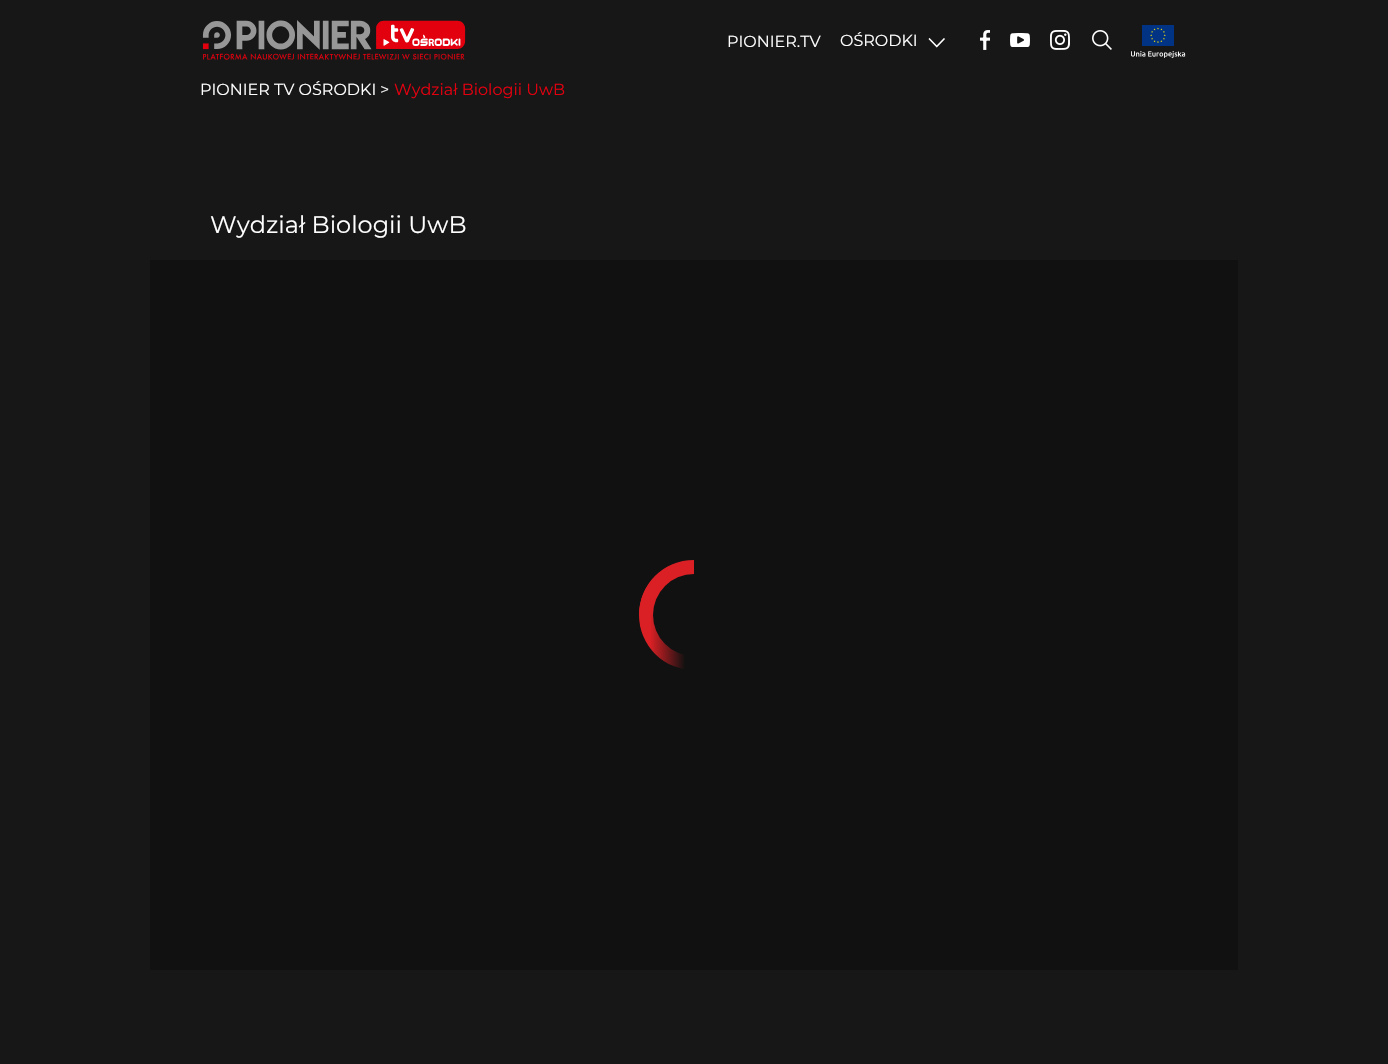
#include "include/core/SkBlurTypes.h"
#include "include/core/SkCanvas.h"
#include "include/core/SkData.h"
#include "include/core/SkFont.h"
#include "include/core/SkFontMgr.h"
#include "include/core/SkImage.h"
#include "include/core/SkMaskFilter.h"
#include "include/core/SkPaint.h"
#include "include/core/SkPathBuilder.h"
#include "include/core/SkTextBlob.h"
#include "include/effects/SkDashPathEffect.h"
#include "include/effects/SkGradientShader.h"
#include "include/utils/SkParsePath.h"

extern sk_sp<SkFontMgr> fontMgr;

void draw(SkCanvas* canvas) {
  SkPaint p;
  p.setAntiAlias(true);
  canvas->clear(SkColorSetRGB(23, 23, 23));
  canvas->drawImageRect(SkImages::DeferredFromEncodedData(SkData::MakeFromFileName("images/1.png")), SkRect::MakeLTRB(202, 20, 466, 60), SkSamplingOptions());
  canvas->drawImageRect(SkImages::DeferredFromEncodedData(SkData::MakeFromFileName("images/2.png")), SkRect::MakeLTRB(928, 38, 945, 48), SkSamplingOptions());
  canvas->drawImageRect(SkImages::DeferredFromEncodedData(SkData::MakeFromFileName("images/3.png")), SkRect::MakeLTRB(980, 30, 990, 50), SkSamplingOptions());
  canvas->drawImageRect(SkImages::DeferredFromEncodedData(SkData::MakeFromFileName("images/4.png")), SkRect::MakeLTRB(1010, 33, 1030, 47), SkSamplingOptions());
  canvas->drawImageRect(SkImages::DeferredFromEncodedData(SkData::MakeFromFileName("images/5.png")), SkRect::MakeLTRB(1050, 30, 1070, 50), SkSamplingOptions());
  canvas->drawImageRect(SkImages::DeferredFromEncodedData(SkData::MakeFromFileName("images/6.png")), SkRect::MakeLTRB(1092, 30, 1112, 50), SkSamplingOptions());
  canvas->drawImageRect(SkImages::DeferredFromEncodedData(SkData::MakeFromFileName("images/7.png")), SkRect::MakeLTRB(1131, 25, 1186, 58), SkSamplingOptions());
  p.setColor(SkColorSetRGB(17, 17, 17));
  canvas->drawRect(SkRect::MakeLTRB(150, 260, 1238, 970), p);
  {
    const SkColor colors[] = {SkColorSetRGB(219, 32, 37), SkColorSetRGB(17, 17, 17)};
    const float stops[] = {0.1f, 0.42f};
    const SkPoint ends[] = {{639, 615}, {749, 615}};
    p.setShader(SkGradientShader::MakeLinear(ends, colors, stops, 2, SkTileMode::kClamp));
    p.setAlpha(255);
  }
  canvas->drawCircle(694, 615, 55, p);
  p.setShader(nullptr);
  p.setColor(SkColorSetRGB(219, 32, 37));
  canvas->drawPath(SkPathBuilder().moveTo(694, 560).lineTo(694, 615).lineTo(639, 615).cubicTo(639, 584.5f, 663.5f, 560, 694, 560).close().detach(), p);
  p.setColor(SkColorSetRGB(17, 17, 17));
  canvas->drawCircle(694, 615, 41, p);
  SkFont font1(fontMgr->matchFamilyStyle("Montserrat", SkFontStyle(100, SkFontStyle::kNormal_Width, SkFontStyle::kUpright_Slant)), 16);
  font1.setSubpixel(true);
  p.setColor(SK_ColorWHITE);
  canvas->drawString("PIONIER.TV", 727, 47, font1, p);
  canvas->drawString("OŚRODKI", 840, 46, font1, p);
  canvas->drawString("PIONIER TV OŚRODKI", 200, 95, font1, p);
  p.setColor(SkColorSetRGB(238, 238, 238));
  canvas->drawString(">", 380, 95, font1, p);
  p.setColor(SkColorSetRGB(226, 0, 15));
  canvas->drawString("Wydział Biologii UwB", 394, 95, font1, p);
  SkFont font2(fontMgr->matchFamilyStyle("Montserrat", SkFontStyle(100, SkFontStyle::kNormal_Width, SkFontStyle::kUpright_Slant)), 24);
  font2.setSubpixel(true);
  p.setColor(SK_ColorWHITE);
  canvas->drawString("Wydział Biologii UwB", 210, 233, font2, p);
}
